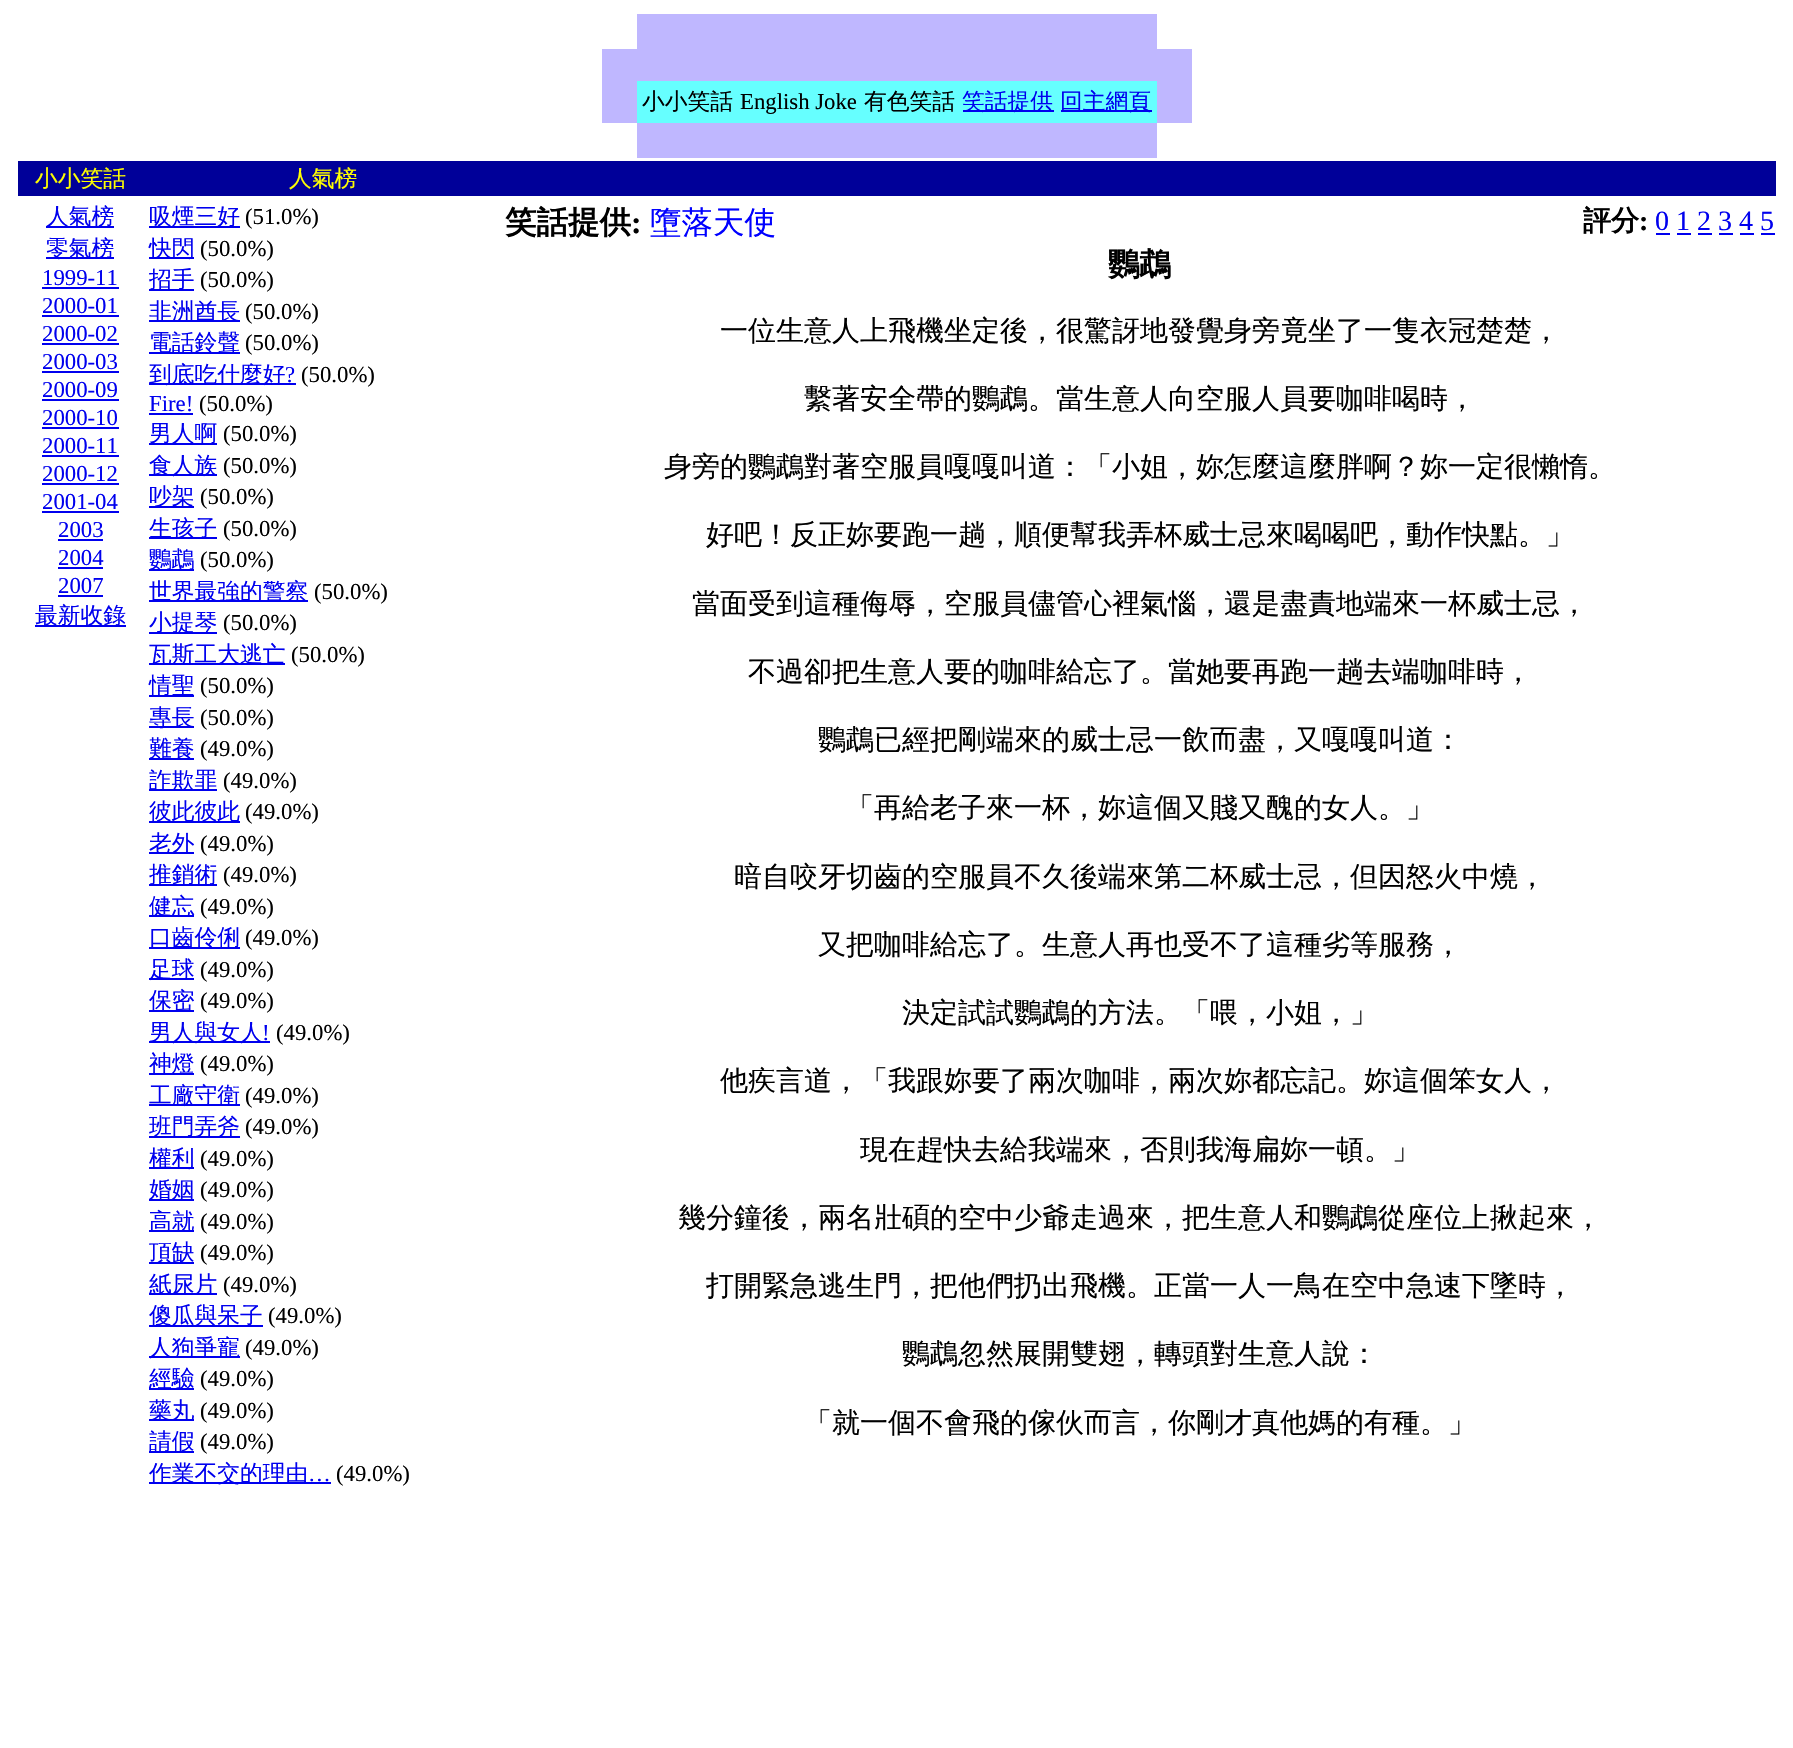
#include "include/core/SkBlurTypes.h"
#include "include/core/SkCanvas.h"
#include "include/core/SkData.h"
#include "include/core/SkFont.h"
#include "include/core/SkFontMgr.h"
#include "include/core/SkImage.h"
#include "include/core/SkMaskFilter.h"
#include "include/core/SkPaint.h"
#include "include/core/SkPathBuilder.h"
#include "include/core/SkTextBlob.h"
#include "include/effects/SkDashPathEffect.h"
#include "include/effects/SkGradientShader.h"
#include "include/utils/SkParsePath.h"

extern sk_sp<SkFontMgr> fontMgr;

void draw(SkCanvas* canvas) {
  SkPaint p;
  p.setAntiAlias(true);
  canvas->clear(SK_ColorWHITE);
  p.setColor(SkColorSetRGB(191, 183, 255));
  canvas->drawRect(SkRect::MakeLTRB(637, 14, 1157, 49), p);
  canvas->drawRect(SkRect::MakeLTRB(602, 49, 1192, 81), p);
  canvas->drawRect(SkRect::MakeLTRB(602, 81, 637, 123), p);
  p.setColor(SkColorSetRGB(102, 255, 255));
  canvas->drawRect(SkRect::MakeLTRB(637, 81, 1157, 123), p);
  p.setColor(SkColorSetRGB(0, 0, 238));
  canvas->drawRect(SkRect::MakeLTRB(963, 110, 1054, 112), p);
  canvas->drawRect(SkRect::MakeLTRB(1061, 110, 1152, 112), p);
  p.setColor(SkColorSetRGB(191, 183, 255));
  canvas->drawRect(SkRect::MakeLTRB(1157, 81, 1192, 123), p);
  canvas->drawRect(SkRect::MakeLTRB(637, 123, 1157, 158), p);
  p.setColor(SkColorSetRGB(0, 0, 153));
  canvas->drawRect(SkRect::MakeLTRB(18, 161, 1776, 196), p);
  p.setColor(SkColorSetRGB(0, 0, 238));
  canvas->drawRect(SkRect::MakeLTRB(46, 226, 114, 228), p);
  canvas->drawRect(SkRect::MakeLTRB(46, 257, 114, 259), p);
  canvas->drawRect(SkRect::MakeLTRB(42, 287, 119, 289), p);
  canvas->drawRect(SkRect::MakeLTRB(42, 315, 119, 317), p);
  canvas->drawRect(SkRect::MakeLTRB(42, 343, 119, 345), p);
  canvas->drawRect(SkRect::MakeLTRB(42, 371, 119, 373), p);
  canvas->drawRect(SkRect::MakeLTRB(42, 399, 119, 401), p);
  canvas->drawRect(SkRect::MakeLTRB(42, 427, 119, 429), p);
  canvas->drawRect(SkRect::MakeLTRB(42, 455, 119, 457), p);
  canvas->drawRect(SkRect::MakeLTRB(42, 483, 119, 485), p);
  canvas->drawRect(SkRect::MakeLTRB(42, 511, 119, 513), p);
  canvas->drawRect(SkRect::MakeLTRB(58, 539, 103, 541), p);
  canvas->drawRect(SkRect::MakeLTRB(58, 567, 103, 569), p);
  canvas->drawRect(SkRect::MakeLTRB(58, 595, 103, 597), p);
  canvas->drawRect(SkRect::MakeLTRB(35, 625, 126, 627), p);
  canvas->drawRect(SkRect::MakeLTRB(149, 226, 240, 228), p);
  canvas->drawRect(SkRect::MakeLTRB(149, 257, 194, 259), p);
  canvas->drawRect(SkRect::MakeLTRB(149, 289, 194, 291), p);
  canvas->drawRect(SkRect::MakeLTRB(149, 320, 240, 322), p);
  canvas->drawRect(SkRect::MakeLTRB(149, 352, 240, 354), p);
  canvas->drawRect(SkRect::MakeLTRB(149, 383, 296, 385), p);
  canvas->drawRect(SkRect::MakeLTRB(149, 413, 193, 415), p);
  canvas->drawRect(SkRect::MakeLTRB(149, 443, 217, 445), p);
  canvas->drawRect(SkRect::MakeLTRB(149, 474, 217, 476), p);
  canvas->drawRect(SkRect::MakeLTRB(149, 506, 194, 508), p);
  canvas->drawRect(SkRect::MakeLTRB(149, 537, 217, 539), p);
  canvas->drawRect(SkRect::MakeLTRB(149, 569, 194, 571), p);
  canvas->drawRect(SkRect::MakeLTRB(149, 600, 308, 602), p);
  canvas->drawRect(SkRect::MakeLTRB(149, 632, 217, 634), p);
  canvas->drawRect(SkRect::MakeLTRB(149, 663, 285, 665), p);
  canvas->drawRect(SkRect::MakeLTRB(149, 695, 194, 697), p);
  canvas->drawRect(SkRect::MakeLTRB(149, 726, 194, 728), p);
  canvas->drawRect(SkRect::MakeLTRB(149, 758, 194, 760), p);
  canvas->drawRect(SkRect::MakeLTRB(149, 789, 217, 791), p);
  canvas->drawRect(SkRect::MakeLTRB(149, 821, 240, 823), p);
  canvas->drawRect(SkRect::MakeLTRB(149, 852, 194, 854), p);
  canvas->drawRect(SkRect::MakeLTRB(149, 884, 217, 886), p);
  canvas->drawRect(SkRect::MakeLTRB(149, 915, 194, 917), p);
  canvas->drawRect(SkRect::MakeLTRB(149, 947, 240, 949), p);
  canvas->drawRect(SkRect::MakeLTRB(149, 978, 194, 980), p);
  canvas->drawRect(SkRect::MakeLTRB(149, 1010, 194, 1012), p);
  canvas->drawRect(SkRect::MakeLTRB(149, 1041, 270, 1043), p);
  canvas->drawRect(SkRect::MakeLTRB(149, 1073, 194, 1075), p);
  canvas->drawRect(SkRect::MakeLTRB(149, 1104, 240, 1106), p);
  canvas->drawRect(SkRect::MakeLTRB(149, 1136, 240, 1138), p);
  canvas->drawRect(SkRect::MakeLTRB(149, 1167, 194, 1169), p);
  canvas->drawRect(SkRect::MakeLTRB(149, 1199, 194, 1201), p);
  canvas->drawRect(SkRect::MakeLTRB(149, 1230, 194, 1232), p);
  canvas->drawRect(SkRect::MakeLTRB(149, 1262, 194, 1264), p);
  canvas->drawRect(SkRect::MakeLTRB(149, 1293, 217, 1295), p);
  canvas->drawRect(SkRect::MakeLTRB(149, 1325, 263, 1327), p);
  canvas->drawRect(SkRect::MakeLTRB(149, 1356, 240, 1358), p);
  canvas->drawRect(SkRect::MakeLTRB(149, 1388, 194, 1390), p);
  canvas->drawRect(SkRect::MakeLTRB(149, 1419, 194, 1421), p);
  canvas->drawRect(SkRect::MakeLTRB(149, 1451, 194, 1453), p);
  canvas->drawRect(SkRect::MakeLTRB(149, 1482, 331, 1484), p);
  canvas->drawRect(SkRect::MakeLTRB(1656, 233, 1670, 235), p);
  canvas->drawRect(SkRect::MakeLTRB(1677, 233, 1691, 235), p);
  canvas->drawRect(SkRect::MakeLTRB(1698, 233, 1712, 235), p);
  canvas->drawRect(SkRect::MakeLTRB(1719, 233, 1733, 235), p);
  canvas->drawRect(SkRect::MakeLTRB(1740, 233, 1754, 235), p);
  canvas->drawRect(SkRect::MakeLTRB(1761, 233, 1775, 235), p);
  SkFont font1(fontMgr->matchFamilyStyle("WenQuanYi Zen Hei", SkFontStyle(500, SkFontStyle::kNormal_Width, SkFontStyle::kUpright_Slant)), 22.75f);
  font1.setSubpixel(true);
  p.setColor(SK_ColorBLACK);
  canvas->drawString("小小笑話", 642, 109, font1, p);
  SkFont font2(fontMgr->matchFamilyStyle("Liberation Serif", SkFontStyle::Normal()), 22.75f);
  font2.setSubpixel(true);
  canvas->drawString("English Joke", 740, 109, font2, p);
  canvas->drawString("有色笑話", 864, 109, font1, p);
  p.setColor(SkColorSetRGB(0, 0, 238));
  canvas->drawString("笑話提供", 962, 109, font1, p);
  canvas->drawString("回主網頁", 1060, 109, font1, p);
  p.setColor(SkColorSetRGB(255, 255, 0));
  canvas->drawString("小小笑話", 35, 186, font1, p);
  canvas->drawString("人氣榜", 289, 186, font1, p);
  p.setColor(SkColorSetRGB(0, 0, 238));
  canvas->drawString("人氣榜", 46, 224, font1, p);
  canvas->drawString("零氣榜", 46, 256, font1, p);
  canvas->drawString("1999-11", 42, 285, font2, p);
  canvas->drawString("2000-01", 42, 313, font2, p);
  canvas->drawString("2000-02", 42, 341, font2, p);
  canvas->drawString("2000-03", 42, 369, font2, p);
  canvas->drawString("2000-09", 42, 397, font2, p);
  canvas->drawString("2000-10", 42, 425, font2, p);
  canvas->drawString("2000-11", 42, 453, font2, p);
  canvas->drawString("2000-12", 42, 481, font2, p);
  canvas->drawString("2001-04", 42, 509, font2, p);
  canvas->drawString("2003", 58, 537, font2, p);
  canvas->drawString("2004", 58, 565, font2, p);
  canvas->drawString("2007", 58, 593, font2, p);
  canvas->drawString("最新收錄", 35, 623, font1, p);
  canvas->drawString("吸煙三好", 149, 224, font1, p);
  p.setColor(SK_ColorBLACK);
  canvas->drawString("(51.0%)", 245, 224, font2, p);
  p.setColor(SkColorSetRGB(0, 0, 238));
  canvas->drawString("快閃", 149, 256, font1, p);
  p.setColor(SK_ColorBLACK);
  canvas->drawString("(50.0%)", 200, 256, font2, p);
  p.setColor(SkColorSetRGB(0, 0, 238));
  canvas->drawString("招手", 149, 287, font1, p);
  p.setColor(SK_ColorBLACK);
  canvas->drawString("(50.0%)", 200, 287, font2, p);
  p.setColor(SkColorSetRGB(0, 0, 238));
  canvas->drawString("非洲酋長", 149, 319, font1, p);
  p.setColor(SK_ColorBLACK);
  canvas->drawString("(50.0%)", 245, 319, font2, p);
  p.setColor(SkColorSetRGB(0, 0, 238));
  canvas->drawString("電話鈴聲", 149, 350, font1, p);
  p.setColor(SK_ColorBLACK);
  canvas->drawString("(50.0%)", 245, 350, font2, p);
  p.setColor(SkColorSetRGB(0, 0, 238));
  canvas->drawString("到底吃什麼好", 149, 382, font1, p);
  canvas->drawString("?", 285, 382, font2, p);
  p.setColor(SK_ColorBLACK);
  canvas->drawString("(50.0%)", 301, 382, font2, p);
  p.setColor(SkColorSetRGB(0, 0, 238));
  canvas->drawString("Fire!", 149, 411, font2, p);
  p.setColor(SK_ColorBLACK);
  canvas->drawString("(50.0%)", 199, 411, font2, p);
  p.setColor(SkColorSetRGB(0, 0, 238));
  canvas->drawString("男人啊", 149, 441, font1, p);
  p.setColor(SK_ColorBLACK);
  canvas->drawString("(50.0%)", 223, 441, font2, p);
  p.setColor(SkColorSetRGB(0, 0, 238));
  canvas->drawString("食人族", 149, 473, font1, p);
  p.setColor(SK_ColorBLACK);
  canvas->drawString("(50.0%)", 223, 473, font2, p);
  p.setColor(SkColorSetRGB(0, 0, 238));
  canvas->drawString("吵架", 149, 504, font1, p);
  p.setColor(SK_ColorBLACK);
  canvas->drawString("(50.0%)", 200, 504, font2, p);
  p.setColor(SkColorSetRGB(0, 0, 238));
  canvas->drawString("生孩子", 149, 536, font1, p);
  p.setColor(SK_ColorBLACK);
  canvas->drawString("(50.0%)", 223, 536, font2, p);
  p.setColor(SkColorSetRGB(0, 0, 238));
  canvas->drawString("鸚鵡", 149, 567, font1, p);
  p.setColor(SK_ColorBLACK);
  canvas->drawString("(50.0%)", 200, 567, font2, p);
  p.setColor(SkColorSetRGB(0, 0, 238));
  canvas->drawString("世界最強的警察", 149, 599, font1, p);
  p.setColor(SK_ColorBLACK);
  canvas->drawString("(50.0%)", 314, 599, font2, p);
  p.setColor(SkColorSetRGB(0, 0, 238));
  canvas->drawString("小提琴", 149, 630, font1, p);
  p.setColor(SK_ColorBLACK);
  canvas->drawString("(50.0%)", 223, 630, font2, p);
  p.setColor(SkColorSetRGB(0, 0, 238));
  canvas->drawString("瓦斯工大逃亡", 149, 662, font1, p);
  p.setColor(SK_ColorBLACK);
  canvas->drawString("(50.0%)", 291, 662, font2, p);
  p.setColor(SkColorSetRGB(0, 0, 238));
  canvas->drawString("情聖", 149, 693, font1, p);
  p.setColor(SK_ColorBLACK);
  canvas->drawString("(50.0%)", 200, 693, font2, p);
  p.setColor(SkColorSetRGB(0, 0, 238));
  canvas->drawString("專長", 149, 725, font1, p);
  p.setColor(SK_ColorBLACK);
  canvas->drawString("(50.0%)", 200, 725, font2, p);
  p.setColor(SkColorSetRGB(0, 0, 238));
  canvas->drawString("難養", 149, 756, font1, p);
  p.setColor(SK_ColorBLACK);
  canvas->drawString("(49.0%)", 200, 756, font2, p);
  p.setColor(SkColorSetRGB(0, 0, 238));
  canvas->drawString("詐欺罪", 149, 788, font1, p);
  p.setColor(SK_ColorBLACK);
  canvas->drawString("(49.0%)", 223, 788, font2, p);
  p.setColor(SkColorSetRGB(0, 0, 238));
  canvas->drawString("彼此彼此", 149, 819, font1, p);
  p.setColor(SK_ColorBLACK);
  canvas->drawString("(49.0%)", 245, 819, font2, p);
  p.setColor(SkColorSetRGB(0, 0, 238));
  canvas->drawString("老外", 149, 851, font1, p);
  p.setColor(SK_ColorBLACK);
  canvas->drawString("(49.0%)", 200, 851, font2, p);
  p.setColor(SkColorSetRGB(0, 0, 238));
  canvas->drawString("推銷術", 149, 882, font1, p);
  p.setColor(SK_ColorBLACK);
  canvas->drawString("(49.0%)", 223, 882, font2, p);
  p.setColor(SkColorSetRGB(0, 0, 238));
  canvas->drawString("健忘", 149, 914, font1, p);
  p.setColor(SK_ColorBLACK);
  canvas->drawString("(49.0%)", 200, 914, font2, p);
  p.setColor(SkColorSetRGB(0, 0, 238));
  canvas->drawString("口齒伶俐", 149, 945, font1, p);
  p.setColor(SK_ColorBLACK);
  canvas->drawString("(49.0%)", 245, 945, font2, p);
  p.setColor(SkColorSetRGB(0, 0, 238));
  canvas->drawString("足球", 149, 977, font1, p);
  p.setColor(SK_ColorBLACK);
  canvas->drawString("(49.0%)", 200, 977, font2, p);
  p.setColor(SkColorSetRGB(0, 0, 238));
  canvas->drawString("保密", 149, 1008, font1, p);
  p.setColor(SK_ColorBLACK);
  canvas->drawString("(49.0%)", 200, 1008, font2, p);
  p.setColor(SkColorSetRGB(0, 0, 238));
  canvas->drawString("男人與女人", 149, 1040, font1, p);
  canvas->drawString("!", 262, 1040, font2, p);
  p.setColor(SK_ColorBLACK);
  canvas->drawString("(49.0%)", 276, 1040, font2, p);
  p.setColor(SkColorSetRGB(0, 0, 238));
  canvas->drawString("神燈", 149, 1071, font1, p);
  p.setColor(SK_ColorBLACK);
  canvas->drawString("(49.0%)", 200, 1071, font2, p);
  p.setColor(SkColorSetRGB(0, 0, 238));
  canvas->drawString("工廠守衛", 149, 1103, font1, p);
  p.setColor(SK_ColorBLACK);
  canvas->drawString("(49.0%)", 245, 1103, font2, p);
  p.setColor(SkColorSetRGB(0, 0, 238));
  canvas->drawString("班門弄斧", 149, 1134, font1, p);
  p.setColor(SK_ColorBLACK);
  canvas->drawString("(49.0%)", 245, 1134, font2, p);
  p.setColor(SkColorSetRGB(0, 0, 238));
  canvas->drawString("權利", 149, 1166, font1, p);
  p.setColor(SK_ColorBLACK);
  canvas->drawString("(49.0%)", 200, 1166, font2, p);
  p.setColor(SkColorSetRGB(0, 0, 238));
  canvas->drawString("婚姻", 149, 1197, font1, p);
  p.setColor(SK_ColorBLACK);
  canvas->drawString("(49.0%)", 200, 1197, font2, p);
  p.setColor(SkColorSetRGB(0, 0, 238));
  canvas->drawString("高就", 149, 1229, font1, p);
  p.setColor(SK_ColorBLACK);
  canvas->drawString("(49.0%)", 200, 1229, font2, p);
  p.setColor(SkColorSetRGB(0, 0, 238));
  canvas->drawString("頂缺", 149, 1260, font1, p);
  p.setColor(SK_ColorBLACK);
  canvas->drawString("(49.0%)", 200, 1260, font2, p);
  p.setColor(SkColorSetRGB(0, 0, 238));
  canvas->drawString("紙尿片", 149, 1292, font1, p);
  p.setColor(SK_ColorBLACK);
  canvas->drawString("(49.0%)", 223, 1292, font2, p);
  p.setColor(SkColorSetRGB(0, 0, 238));
  canvas->drawString("傻瓜與呆子", 149, 1323, font1, p);
  p.setColor(SK_ColorBLACK);
  canvas->drawString("(49.0%)", 268, 1323, font2, p);
  p.setColor(SkColorSetRGB(0, 0, 238));
  canvas->drawString("人狗爭寵", 149, 1355, font1, p);
  p.setColor(SK_ColorBLACK);
  canvas->drawString("(49.0%)", 245, 1355, font2, p);
  p.setColor(SkColorSetRGB(0, 0, 238));
  canvas->drawString("經驗", 149, 1386, font1, p);
  p.setColor(SK_ColorBLACK);
  canvas->drawString("(49.0%)", 200, 1386, font2, p);
  p.setColor(SkColorSetRGB(0, 0, 238));
  canvas->drawString("藥丸", 149, 1418, font1, p);
  p.setColor(SK_ColorBLACK);
  canvas->drawString("(49.0%)", 200, 1418, font2, p);
  p.setColor(SkColorSetRGB(0, 0, 238));
  canvas->drawString("請假", 149, 1449, font1, p);
  p.setColor(SK_ColorBLACK);
  canvas->drawString("(49.0%)", 200, 1449, font2, p);
  p.setColor(SkColorSetRGB(0, 0, 238));
  canvas->drawString("作業不交的理由", 149, 1481, font1, p);
  canvas->drawString("…", 308, 1481, font2, p);
  p.setColor(SK_ColorBLACK);
  canvas->drawString("(49.0%)", 336, 1481, font2, p);
  SkFont font3(fontMgr->matchFamilyStyle("WenQuanYi Zen Hei", SkFontStyle::Bold()), 31.5f);
  font3.setSubpixel(true);
  canvas->drawString("笑話提供", 505, 233, font3, p);
  SkFont font4(fontMgr->matchFamilyStyle("Liberation Serif", SkFontStyle::Bold()), 31.5f);
  font4.setSubpixel(true);
  canvas->drawString(":", 631, 233, font4, p);
  SkFont font5(fontMgr->matchFamilyStyle("WenQuanYi Zen Hei", SkFontStyle(500, SkFontStyle::kNormal_Width, SkFontStyle::kUpright_Slant)), 31.5f);
  font5.setSubpixel(true);
  p.setColor(SkColorSetRGB(0, 0, 255));
  canvas->drawString("墮落天使", 650, 233, font5, p);
  SkFont font6(fontMgr->matchFamilyStyle("WenQuanYi Zen Hei", SkFontStyle::Bold()), 28);
  font6.setSubpixel(true);
  p.setColor(SK_ColorBLACK);
  canvas->drawString("評分", 1583, 230, font6, p);
  SkFont font7(fontMgr->matchFamilyStyle("Liberation Serif", SkFontStyle::Bold()), 28);
  font7.setSubpixel(true);
  canvas->drawString(":", 1639, 230, font7, p);
  SkFont font8(fontMgr->matchFamilyStyle("Liberation Serif", SkFontStyle::Normal()), 28);
  font8.setSubpixel(true);
  p.setColor(SkColorSetRGB(0, 0, 238));
  canvas->drawString("0 1 2 3 4 5", 1655, 230, font8, p);
  p.setColor(SK_ColorBLACK);
  canvas->drawString("鸚鵡", 1108, 275, font3, p);
  SkFont font9(fontMgr->matchFamilyStyle("WenQuanYi Zen Hei", SkFontStyle(500, SkFontStyle::kNormal_Width, SkFontStyle::kUpright_Slant)), 28);
  font9.setSubpixel(true);
  canvas->drawString("一位生意人上飛機坐定後，很驚訝地發覺身旁竟坐了一隻衣冠楚楚，", 720, 340, font9, p);
  canvas->drawString("繫著安全帶的鸚鵡。當生意人向空服人員要咖啡喝時，", 804, 408, font9, p);
  canvas->drawString("身旁的鸚鵡對著空服員嘎嘎叫道：「小姐，妳怎麼這麼胖啊？妳一定很懶惰。", 664, 476, font9, p);
  canvas->drawString("好吧！反正妳要跑一趟，順便幫我弄杯威士忌來喝喝吧，動作快點。」", 706, 544, font9, p);
  canvas->drawString("當面受到這種侮辱，空服員儘管心裡氣惱，還是盡責地端來一杯威士忌，", 692, 613, font9, p);
  canvas->drawString("不過卻把生意人要的咖啡給忘了。當她要再跑一趟去端咖啡時，", 748, 681, font9, p);
  canvas->drawString("鸚鵡已經把剛端來的威士忌一飲而盡，又嘎嘎叫道：", 818, 749, font9, p);
  canvas->drawString("「再給老子來一杯，妳這個又賤又醜的女人。」", 846, 817, font9, p);
  canvas->drawString("暗自咬牙切齒的空服員不久後端來第二杯威士忌，但因怒火中燒，", 734, 886, font9, p);
  canvas->drawString("又把咖啡給忘了。生意人再也受不了這種劣等服務，", 818, 954, font9, p);
  canvas->drawString("決定試試鸚鵡的方法。「喂，小姐，」", 902, 1022, font9, p);
  canvas->drawString("他疾言道，「我跟妳要了兩次咖啡，兩次妳都忘記。妳這個笨女人，", 720, 1090, font9, p);
  canvas->drawString("現在趕快去給我端來，否則我海扁妳一頓。」", 860, 1159, font9, p);
  canvas->drawString("幾分鐘後，兩名壯碩的空中少爺走過來，把生意人和鸚鵡從座位上揪起來，", 678, 1227, font9, p);
  canvas->drawString("打開緊急逃生門，把他們扔出飛機。正當一人一鳥在空中急速下墜時，", 706, 1295, font9, p);
  canvas->drawString("鸚鵡忽然展開雙翅，轉頭對生意人說：", 902, 1363, font9, p);
  canvas->drawString("「就一個不會飛的傢伙而言，你剛才真他媽的有種。」", 804, 1432, font9, p);
}
